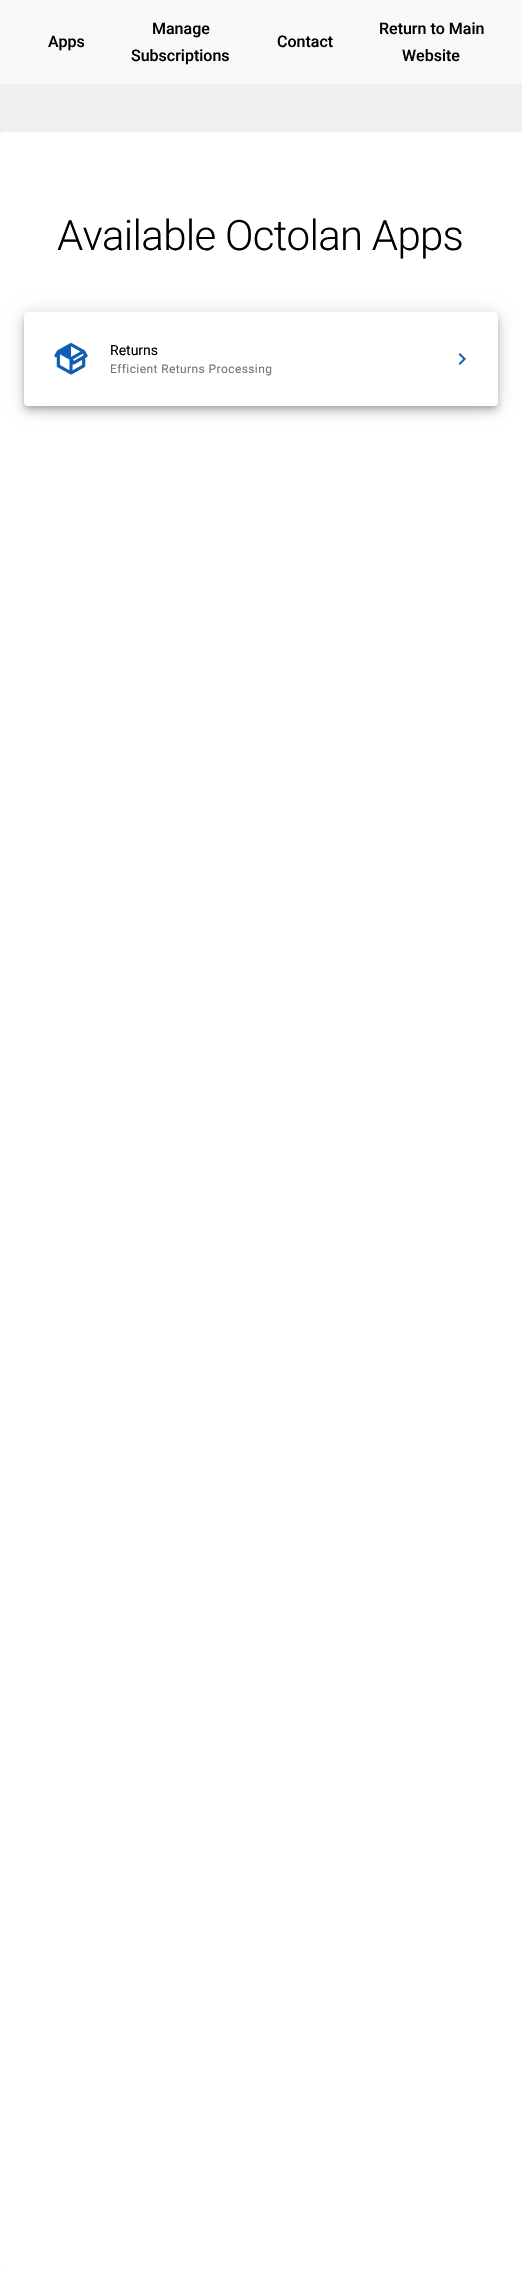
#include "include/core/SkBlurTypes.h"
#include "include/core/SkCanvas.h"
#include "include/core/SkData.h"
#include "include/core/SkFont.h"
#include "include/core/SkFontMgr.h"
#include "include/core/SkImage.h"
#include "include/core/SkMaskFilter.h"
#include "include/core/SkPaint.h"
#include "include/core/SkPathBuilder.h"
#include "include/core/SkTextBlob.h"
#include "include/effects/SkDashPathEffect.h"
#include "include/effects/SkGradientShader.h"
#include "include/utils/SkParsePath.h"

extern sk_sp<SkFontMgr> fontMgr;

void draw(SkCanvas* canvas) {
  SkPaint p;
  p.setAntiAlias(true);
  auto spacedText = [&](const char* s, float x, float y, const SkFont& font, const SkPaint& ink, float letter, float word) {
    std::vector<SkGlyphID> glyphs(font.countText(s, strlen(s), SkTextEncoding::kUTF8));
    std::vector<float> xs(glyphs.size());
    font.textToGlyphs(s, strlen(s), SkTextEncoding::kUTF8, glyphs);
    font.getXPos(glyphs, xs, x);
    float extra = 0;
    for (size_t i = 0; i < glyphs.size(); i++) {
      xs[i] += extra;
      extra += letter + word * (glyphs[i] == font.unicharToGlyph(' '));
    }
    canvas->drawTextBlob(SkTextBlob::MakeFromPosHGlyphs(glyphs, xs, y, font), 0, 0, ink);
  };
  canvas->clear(SK_ColorWHITE);
  p.setColor(SkColorSetRGB(248, 248, 248));
  canvas->drawRect(SkRect::MakeLTRB(0, 0, 522, 84), p);
  {
    const SkColor colors[] = {SkColorSetRGB(239, 239, 239), SkColorSetRGB(251, 251, 251)};
    const float stops[] = {0, 1};
    const SkPoint ends[] = {{261, 0}, {261, 2271}};
    p.setShader(SkGradientShader::MakeLinear(ends, colors, stops, 2, SkTileMode::kClamp));
    p.setAlpha(255);
  }
  canvas->drawRect(SkRect::MakeLTRB(0, 84, 522, 2271), p);
  p.setShader(nullptr);
  p.setColor(SK_ColorWHITE);
  canvas->drawRoundRect(SkRect::MakeLTRB(0, 132, 522, 2271), 4, 4, p);
  p.setColor(SkColorSetARGB(31, 0, 0, 0));
  p.setMaskFilter(SkMaskFilter::MakeBlur(kNormal_SkBlurStyle, 9));
  canvas->drawRoundRect(SkRect::MakeLTRB(24, 313, 498, 407), 4, 4, p);
  p.setMaskFilter(nullptr);
  p.setColor(SkColorSetARGB(36, 0, 0, 0));
  p.setMaskFilter(SkMaskFilter::MakeBlur(kNormal_SkBlurStyle, 5));
  canvas->drawRoundRect(SkRect::MakeLTRB(24, 318, 498, 412), 4, 4, p);
  p.setMaskFilter(nullptr);
  p.setColor(SkColorSetARGB(51, 0, 0, 0));
  p.setMaskFilter(SkMaskFilter::MakeBlur(kNormal_SkBlurStyle, 2.5f));
  canvas->drawRoundRect(SkRect::MakeLTRB(25, 316, 497, 408), 3, 3, p);
  p.setMaskFilter(nullptr);
  p.setColor(SK_ColorWHITE);
  canvas->drawRoundRect(SkRect::MakeLTRB(24, 312, 498, 406), 4, 4, p);
  canvas->drawImageRect(SkImages::DeferredFromEncodedData(SkData::MakeFromFileName("images/1.png")), SkRect::MakeLTRB(54, 343, 88, 375), SkSamplingOptions());
  canvas->drawImageRect(SkImages::DeferredFromEncodedData(SkData::MakeFromFileName("images/2.png")), SkRect::MakeLTRB(458, 353, 466, 365), SkSamplingOptions());
  SkFont font1(fontMgr->matchFamilyStyle("Roboto", SkFontStyle(500, SkFontStyle::kNormal_Width, SkFontStyle::kUpright_Slant)), 16);
  font1.setSubpixel(true);
  p.setColor(SK_ColorBLACK);
  canvas->drawString("Apps", 48, 47, font1, p);
  canvas->drawString("Manage", 152, 34, font1, p);
  canvas->drawString("Subscriptions", 131, 61, font1, p);
  canvas->drawString("Contact", 277, 47, font1, p);
  canvas->drawString("Return to Main", 379, 34, font1, p);
  canvas->drawString("Website", 402, 61, font1, p);
  SkFont font2(fontMgr->matchFamilyStyle("Roboto", SkFontStyle(300, SkFontStyle::kNormal_Width, SkFontStyle::kUpright_Slant)), 42);
  font2.setSubpixel(true);
  spacedText("Available Octolan Apps", 57, 250, font2, p, -0.7f, 0);
  SkFont font3(fontMgr->matchFamilyStyle("Roboto", SkFontStyle::Normal()), 14);
  font3.setSubpixel(true);
  canvas->drawString("Returns", 110, 355, font3, p);
  SkFont font4(fontMgr->matchFamilyStyle("Roboto", SkFontStyle::Normal()), 12);
  font4.setSubpixel(true);
  p.setColor(SkColorSetRGB(117, 117, 117));
  spacedText("Efficient Returns Processing", 110, 373, font4, p, 0.4f, 0);
}
